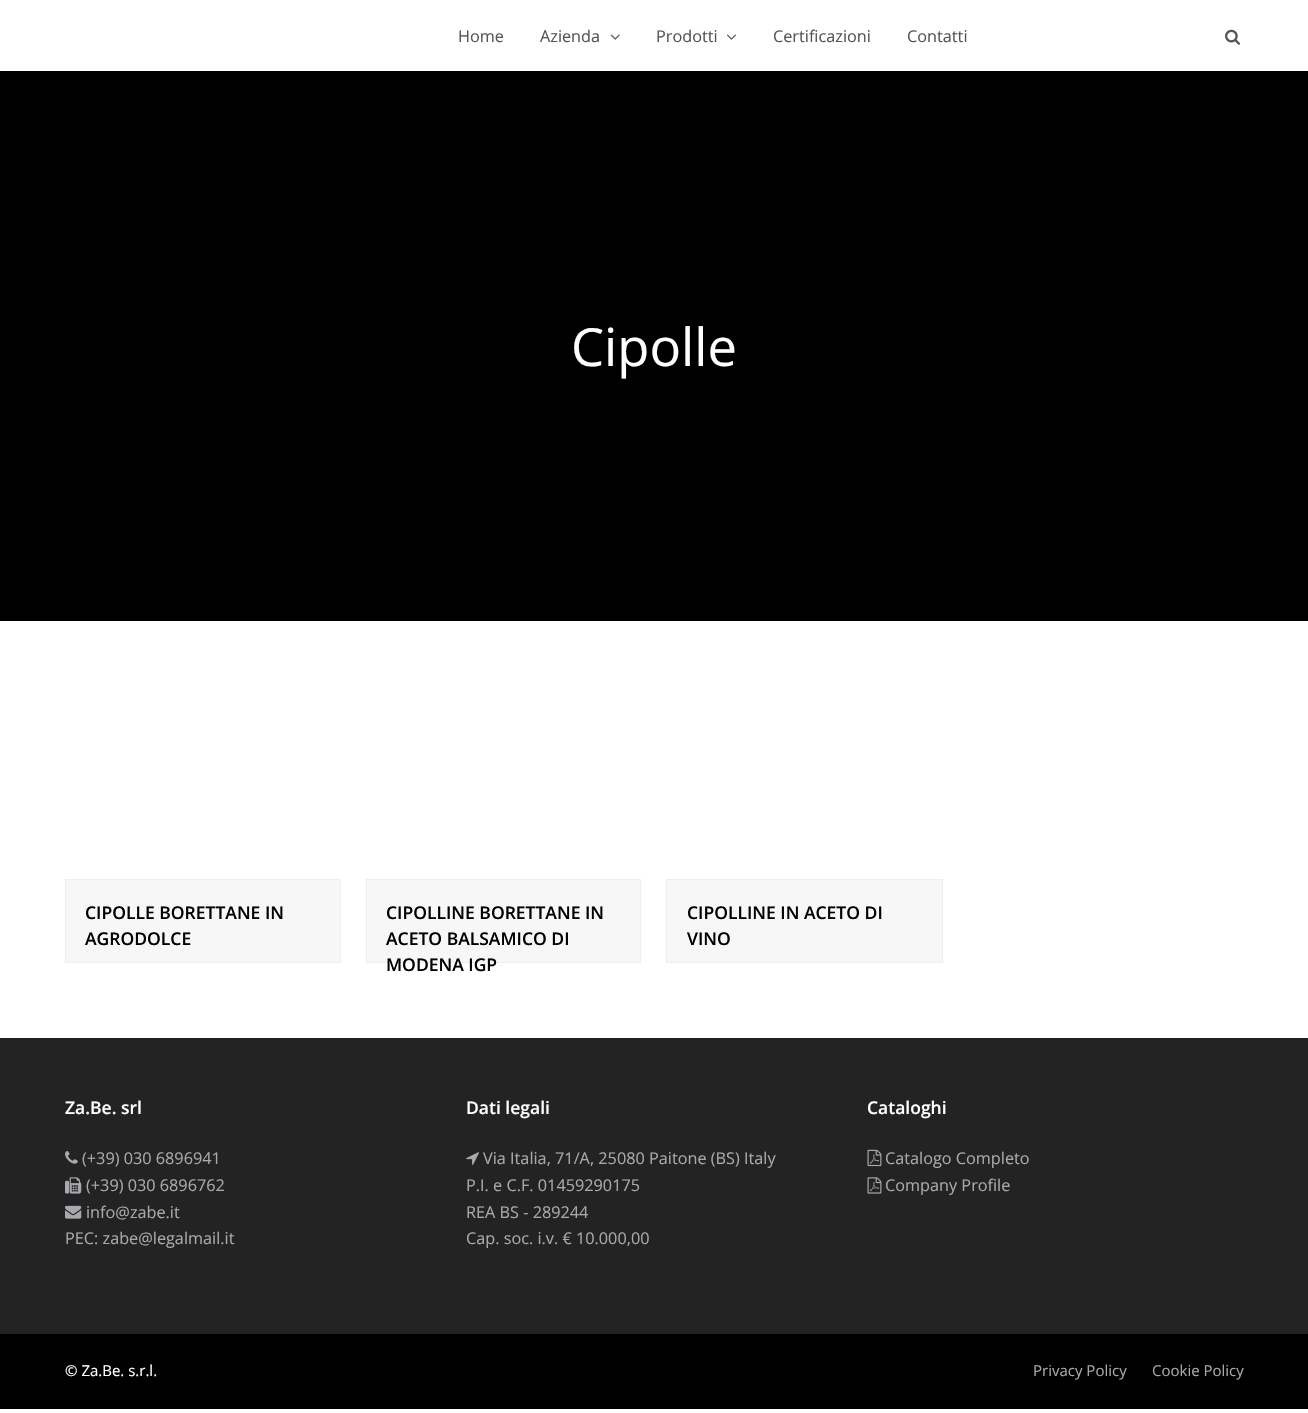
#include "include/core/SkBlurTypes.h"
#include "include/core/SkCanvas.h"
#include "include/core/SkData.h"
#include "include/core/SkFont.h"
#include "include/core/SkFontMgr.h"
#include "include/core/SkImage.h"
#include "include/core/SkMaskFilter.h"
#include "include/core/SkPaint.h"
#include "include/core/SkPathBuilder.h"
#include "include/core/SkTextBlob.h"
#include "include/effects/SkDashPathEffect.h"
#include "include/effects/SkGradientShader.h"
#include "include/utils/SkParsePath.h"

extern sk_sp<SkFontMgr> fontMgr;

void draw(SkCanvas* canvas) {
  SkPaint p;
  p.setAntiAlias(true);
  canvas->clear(SK_ColorWHITE);
  canvas->drawImageRect(SkImages::DeferredFromEncodedData(SkData::MakeFromFileName("images/1.png")), SkRect::MakeLTRB(610, 34, 620, 40), SkSamplingOptions());
  canvas->drawImageRect(SkImages::DeferredFromEncodedData(SkData::MakeFromFileName("images/2.png")), SkRect::MakeLTRB(727, 34, 736, 40), SkSamplingOptions());
  canvas->drawImageRect(SkImages::DeferredFromEncodedData(SkData::MakeFromFileName("images/3.png")), SkRect::MakeLTRB(1225, 29, 1241, 45), SkSamplingOptions());
  p.setColor(SK_ColorBLACK);
  canvas->drawRect(SkRect::MakeLTRB(0, 71, 1308, 621), p);
  p.setColor(SkColorSetRGB(247, 247, 247));
  canvas->drawRect(SkRect::MakeLTRB(65.5f, 879.5f, 340.5f, 962.5f), p);
  p.setStyle(SkPaint::kStroke_Style);
  p.setStrokeWidth(1);
  p.setColor(SkColorSetRGB(238, 238, 238));
  canvas->drawRect(SkRect::MakeLTRB(65.5f, 879.5f, 340.5f, 962.5f), p);
  p.setStyle(SkPaint::kFill_Style);
  p.setColor(SkColorSetRGB(247, 247, 247));
  canvas->drawRect(SkRect::MakeLTRB(366.5f, 879.5f, 640.5f, 962.5f), p);
  p.setStyle(SkPaint::kStroke_Style);
  p.setColor(SkColorSetRGB(238, 238, 238));
  canvas->drawRect(SkRect::MakeLTRB(366.5f, 879.5f, 640.5f, 962.5f), p);
  p.setStyle(SkPaint::kFill_Style);
  p.setColor(SkColorSetRGB(247, 247, 247));
  canvas->drawRect(SkRect::MakeLTRB(666.5f, 879.5f, 942.5f, 962.5f), p);
  p.setStyle(SkPaint::kStroke_Style);
  p.setColor(SkColorSetRGB(238, 238, 238));
  canvas->drawRect(SkRect::MakeLTRB(666.5f, 879.5f, 942.5f, 962.5f), p);
  p.setStyle(SkPaint::kFill_Style);
  p.setColor(SkColorSetRGB(35, 35, 36));
  canvas->drawRect(SkRect::MakeLTRB(0, 1038, 1308, 1334), p);
  canvas->drawImageRect(SkImages::DeferredFromEncodedData(SkData::MakeFromFileName("images/4.png")), SkRect::MakeLTRB(65, 1151, 78, 1164), SkSamplingOptions());
  canvas->drawImageRect(SkImages::DeferredFromEncodedData(SkData::MakeFromFileName("images/5.png")), SkRect::MakeLTRB(65, 1177, 82, 1194), SkSamplingOptions());
  canvas->drawImageRect(SkImages::DeferredFromEncodedData(SkData::MakeFromFileName("images/6.png")), SkRect::MakeLTRB(65, 1205, 82, 1219), SkSamplingOptions());
  canvas->drawImageRect(SkImages::DeferredFromEncodedData(SkData::MakeFromFileName("images/7.png")), SkRect::MakeLTRB(466, 1152, 479, 1165), SkSamplingOptions());
  canvas->drawImageRect(SkImages::DeferredFromEncodedData(SkData::MakeFromFileName("images/8.png")), SkRect::MakeLTRB(867, 1149, 882, 1167), SkSamplingOptions());
  canvas->drawImageRect(SkImages::DeferredFromEncodedData(SkData::MakeFromFileName("images/9.png")), SkRect::MakeLTRB(867, 1177, 882, 1194), SkSamplingOptions());
  p.setColor(SK_ColorBLACK);
  canvas->drawRect(SkRect::MakeLTRB(0, 1334, 1308, 1409), p);
  SkFont font1(fontMgr->matchFamilyStyle("Open Sans", SkFontStyle::Normal()), 16.25f);
  font1.setSubpixel(true);
  p.setColor(SkColorSetRGB(85, 85, 85));
  canvas->drawString("Home", 458, 42, font1, p);
  canvas->drawString("Azienda", 540, 42, font1, p);
  canvas->drawString("Prodotti", 656, 42, font1, p);
  canvas->drawString("Certificazioni", 773, 42, font1, p);
  canvas->drawString("Contatti", 907, 42, font1, p);
  SkFont font2(fontMgr->matchFamilyStyle("Open Sans", SkFontStyle::Normal()), 52.5f);
  font2.setSubpixel(true);
  p.setColor(SK_ColorWHITE);
  canvas->drawString("Cipolle", 571, 366, font2, p);
  SkFont font3(fontMgr->matchFamilyStyle("Open Sans", SkFontStyle(600, SkFontStyle::kNormal_Width, SkFontStyle::kUpright_Slant)), 17.5f);
  font3.setSubpixel(true);
  p.setColor(SK_ColorBLACK);
  canvas->drawString("CIPOLLE BORETTANE IN", 85, 919, font3, p);
  canvas->drawString("AGRODOLCE", 85, 945, font3, p);
  canvas->drawString("CIPOLLINE BORETTANE IN", 386, 919, font3, p);
  canvas->drawString("ACETO BALSAMICO DI", 386, 945, font3, p);
  canvas->drawString("MODENA IGP", 386, 971, font3, p);
  canvas->drawString("CIPOLLINE IN ACETO DI", 687, 919, font3, p);
  canvas->drawString("VINO", 687, 945, font3, p);
  p.setColor(SK_ColorWHITE);
  canvas->drawString("Za.Be. srl", 65, 1114, font3, p);
  p.setColor(SkColorSetRGB(167, 169, 172));
  canvas->drawString("(+39) 030 6896941", 82, 1164, font1, p);
  canvas->drawString("(+39) 030 6896762", 86, 1191, font1, p);
  canvas->drawString("info@zabe.it", 86, 1218, font1, p);
  canvas->drawString("PEC: zabe@legalmail.it", 65, 1244, font1, p);
  p.setColor(SK_ColorWHITE);
  canvas->drawString("Dati legali", 466, 1114, font3, p);
  p.setColor(SkColorSetRGB(167, 169, 172));
  canvas->drawString("Via Italia, 71/A, 25080 Paitone (BS) Italy", 483, 1164, font1, p);
  canvas->drawString("P.I. e C.F. 01459290175", 466, 1191, font1, p);
  canvas->drawString("REA BS - 289244", 466, 1218, font1, p);
  canvas->drawString("Cap. soc. i.v. € 10.000,00", 466, 1244, font1, p);
  p.setColor(SK_ColorWHITE);
  canvas->drawString("Cataloghi", 867, 1114, font3, p);
  p.setColor(SkColorSetRGB(167, 169, 172));
  canvas->drawString("Catalogo Completo", 885, 1164, font1, p);
  canvas->drawString("Company Profile", 885, 1191, font1, p);
  SkFont font4(fontMgr->matchFamilyStyle("Open Sans", SkFontStyle::Normal()), 15);
  font4.setSubpixel(true);
  p.setColor(SK_ColorWHITE);
  canvas->drawString("© Za.Be. s.r.l.", 65, 1376, font4, p);
  p.setColor(SkColorSetRGB(167, 169, 172));
  canvas->drawString("Privacy Policy", 1033, 1376, font4, p);
  canvas->drawString("Cookie Policy", 1152, 1376, font4, p);
}
